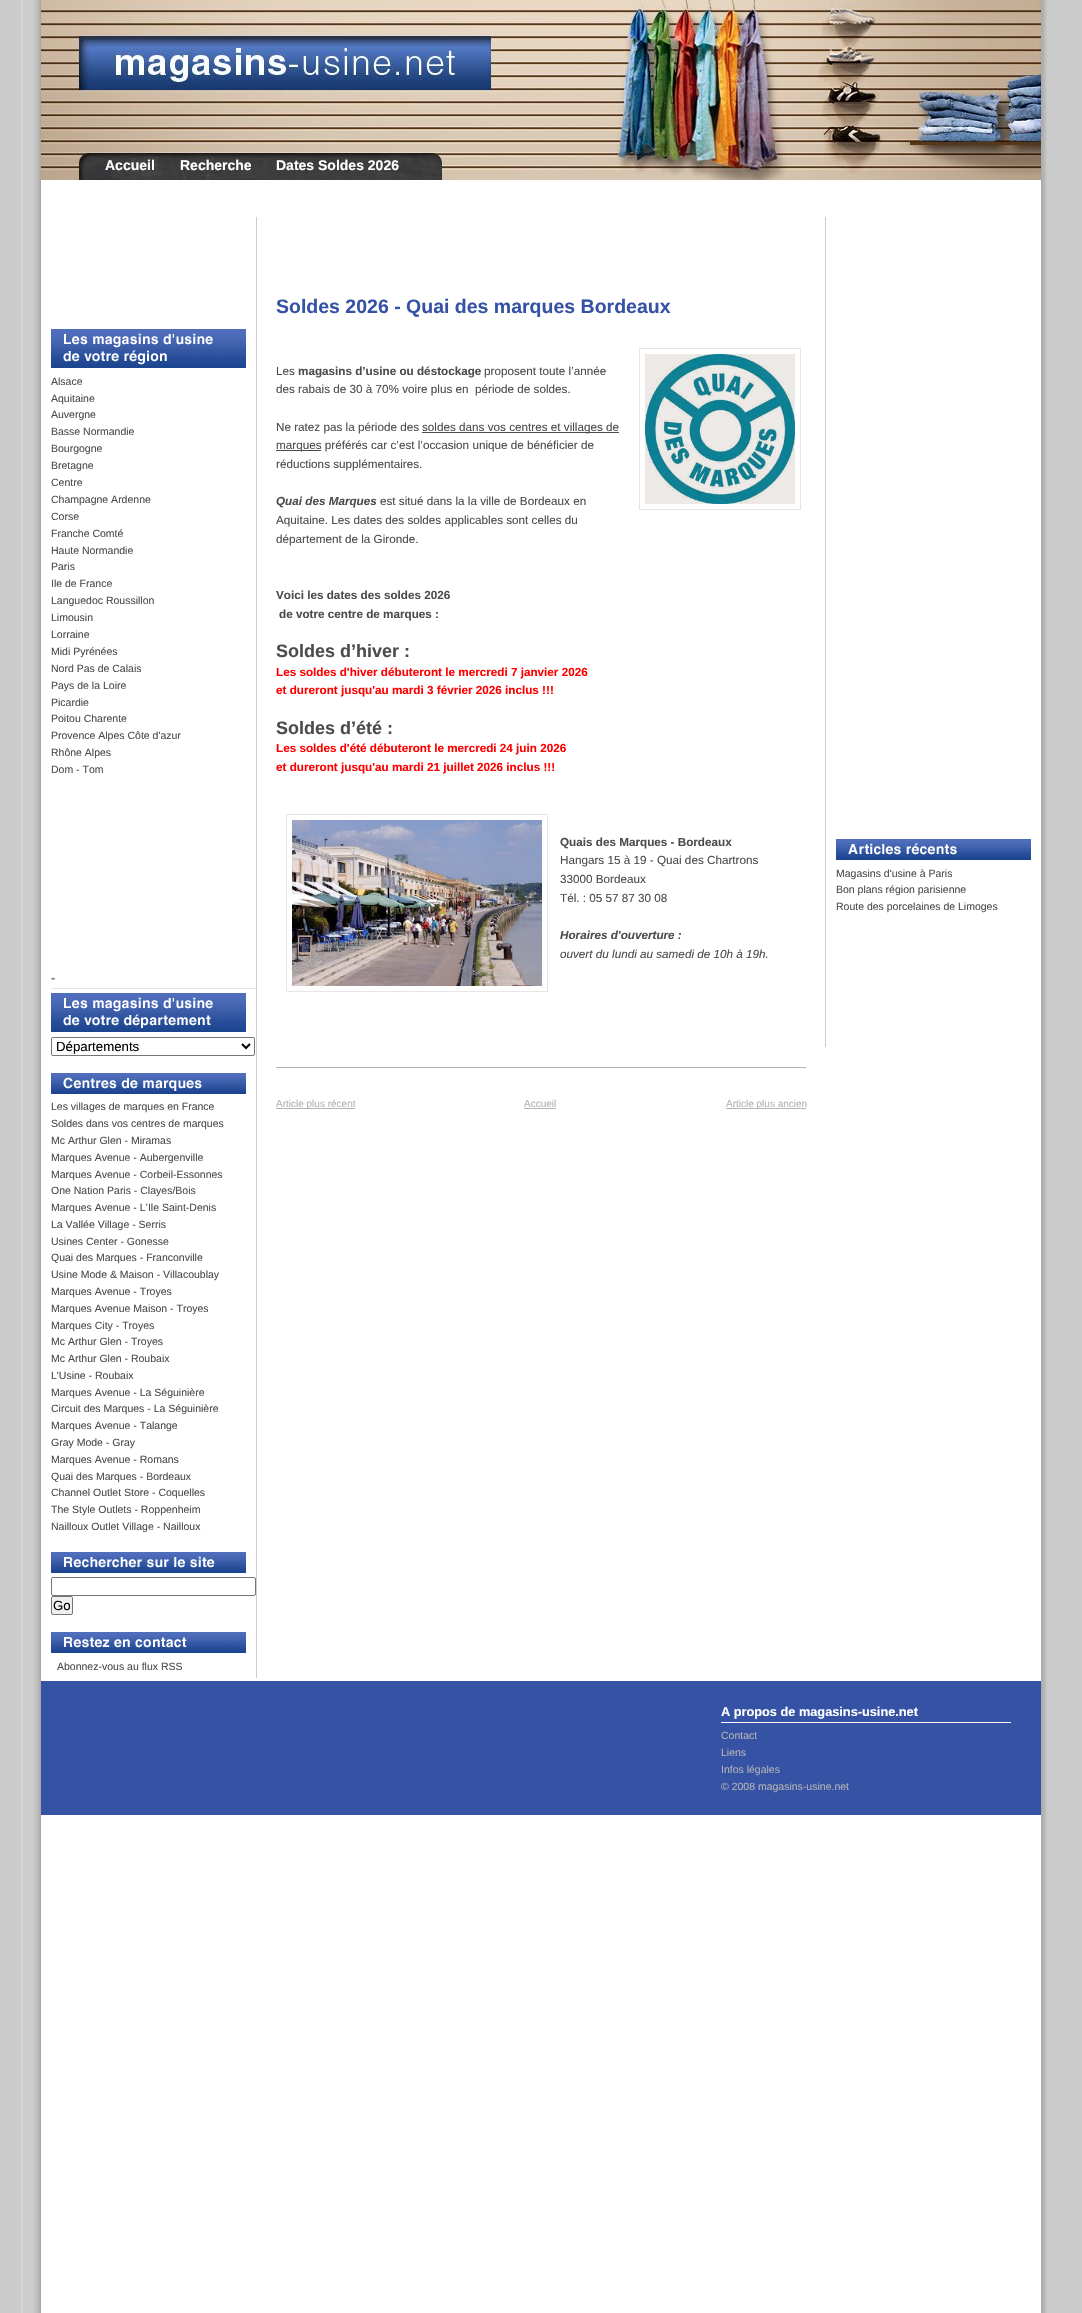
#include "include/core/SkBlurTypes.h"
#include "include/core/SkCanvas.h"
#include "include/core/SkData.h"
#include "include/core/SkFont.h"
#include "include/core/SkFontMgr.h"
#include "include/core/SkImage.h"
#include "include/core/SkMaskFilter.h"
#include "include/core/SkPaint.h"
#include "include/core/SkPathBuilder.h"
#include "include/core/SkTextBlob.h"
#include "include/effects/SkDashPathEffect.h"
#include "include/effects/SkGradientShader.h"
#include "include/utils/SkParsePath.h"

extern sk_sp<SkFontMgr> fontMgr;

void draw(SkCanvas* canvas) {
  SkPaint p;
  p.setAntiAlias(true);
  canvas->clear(SkColorSetRGB(204, 204, 204));
  canvas->drawImageRect(SkImages::DeferredFromEncodedData(SkData::MakeFromFileName("images/1.png")), SkRect::MakeLTRB(21, 0, 1047, 2313), SkSamplingOptions());
  canvas->drawImageRect(SkImages::DeferredFromEncodedData(SkData::MakeFromFileName("images/2.png")), SkRect::MakeLTRB(41, 0, 1041, 180), SkSamplingOptions());
  p.setColor(SkColorSetRGB(204, 204, 204));
  canvas->drawRect(SkRect::MakeLTRB(256, 217, 257, 1678), p);
  canvas->drawImageRect(SkImages::DeferredFromEncodedData(SkData::MakeFromFileName("images/3.png")), SkRect::MakeLTRB(51, 329, 246, 368), SkSamplingOptions());
  p.setColor(SkColorSetRGB(230, 230, 230));
  canvas->drawRect(SkRect::MakeLTRB(51, 988, 256, 989), p);
  canvas->drawImageRect(SkImages::DeferredFromEncodedData(SkData::MakeFromFileName("images/4.png")), SkRect::MakeLTRB(51, 993, 246, 1032), SkSamplingOptions());
  p.setStyle(SkPaint::kStroke_Style);
  p.setStrokeWidth(1);
  p.setColor(SkColorSetRGB(118, 118, 118));
  canvas->drawRoundRect(SkRect::MakeLTRB(51.5f, 1037.5f, 254.5f, 1055.5f), 1.5f, 1.5f, p);
  p.setStrokeWidth(2);
  p.setColor(SK_ColorBLACK);
  canvas->drawPath(SkPathBuilder().moveTo(242, 1044).lineTo(246, 1048).lineTo(250, 1044).detach(), p);
  canvas->drawImageRect(SkImages::DeferredFromEncodedData(SkData::MakeFromFileName("images/5.png")), SkRect::MakeLTRB(51, 1073, 246, 1094), SkSamplingOptions());
  canvas->drawImageRect(SkImages::DeferredFromEncodedData(SkData::MakeFromFileName("images/6.png")), SkRect::MakeLTRB(51, 1552, 246, 1573), SkSamplingOptions());
  p.setStrokeWidth(1);
  p.setColor(SkColorSetRGB(118, 118, 118));
  canvas->drawRoundRect(SkRect::MakeLTRB(51.5f, 1577.5f, 255.5f, 1595.5f), 1.5f, 1.5f, p);
  p.setStyle(SkPaint::kFill_Style);
  p.setColor(SkColorSetRGB(239, 239, 239));
  canvas->drawRoundRect(SkRect::MakeLTRB(51.5f, 1596.5f, 72.5f, 1614.5f), 1.5f, 1.5f, p);
  p.setStyle(SkPaint::kStroke_Style);
  p.setColor(SkColorSetRGB(118, 118, 118));
  canvas->drawRoundRect(SkRect::MakeLTRB(51.5f, 1596.5f, 72.5f, 1614.5f), 1.5f, 1.5f, p);
  canvas->drawImageRect(SkImages::DeferredFromEncodedData(SkData::MakeFromFileName("images/7.png")), SkRect::MakeLTRB(51, 1632, 246, 1653), SkSamplingOptions());
  p.setColor(SkColorSetRGB(230, 230, 230));
  canvas->drawRect(SkRect::MakeLTRB(639.5f, 348.5f, 800.5f, 509.5f), p);
  canvas->drawImageRect(SkImages::DeferredFromEncodedData(SkData::MakeFromFileName("images/8.png")), SkRect::MakeLTRB(645, 354, 795, 504), SkSamplingOptions());
  p.setStyle(SkPaint::kFill_Style);
  p.setColor(SkColorSetRGB(76, 76, 76));
  canvas->drawRect(SkRect::MakeLTRB(422, 432, 619, 433), p);
  canvas->drawRect(SkRect::MakeLTRB(276, 450, 321, 451), p);
  p.setStyle(SkPaint::kStroke_Style);
  p.setColor(SkColorSetRGB(230, 230, 230));
  canvas->drawRect(SkRect::MakeLTRB(286.5f, 814.5f, 547.5f, 991.5f), p);
  canvas->drawImageRect(SkImages::DeferredFromEncodedData(SkData::MakeFromFileName("images/9.png")), SkRect::MakeLTRB(292, 820, 542, 986), SkSamplingOptions());
  p.setStyle(SkPaint::kFill_Style);
  p.setColor(SkColorSetRGB(179, 179, 179));
  canvas->drawRect(SkRect::MakeLTRB(276, 1067, 806, 1068), p);
  canvas->drawRect(SkRect::MakeLTRB(276, 1108, 355, 1109), p);
  canvas->drawRect(SkRect::MakeLTRB(524, 1108, 556, 1109), p);
  canvas->drawRect(SkRect::MakeLTRB(726, 1108, 806, 1109), p);
  p.setColor(SkColorSetRGB(204, 204, 204));
  canvas->drawRect(SkRect::MakeLTRB(825, 217, 826, 1047), p);
  canvas->drawImageRect(SkImages::DeferredFromEncodedData(SkData::MakeFromFileName("images/10.png")), SkRect::MakeLTRB(836, 839, 1031, 860), SkSamplingOptions());
  p.setColor(SkColorSetRGB(53, 82, 165));
  canvas->drawRect(SkRect::MakeLTRB(41, 1681, 1041, 1815), p);
  p.setColor(SK_ColorWHITE);
  canvas->drawRect(SkRect::MakeLTRB(721, 1722, 1011, 1723), p);
  SkFont font1(fontMgr->matchFamilyStyle("Liberation Sans", SkFontStyle::Bold()), 14);
  font1.setSubpixel(true);
  canvas->drawString("Accueil", 105, 170, font1, p);
  canvas->drawString("Recherche", 180, 170, font1, p);
  canvas->drawString("Dates Soldes 2026", 276, 170, font1, p);
  SkFont font2(fontMgr->matchFamilyStyle("Liberation Sans", SkFontStyle::Normal()), 10.5f);
  font2.setSubpixel(true);
  p.setColor(SkColorSetRGB(76, 76, 76));
  canvas->drawString("Alsace", 51, 385, font2, p);
  canvas->drawString("Aquitaine", 51, 402, font2, p);
  canvas->drawString("Auvergne", 51, 418, font2, p);
  canvas->drawString("Basse Normandie", 51, 435, font2, p);
  canvas->drawString("Bourgogne", 51, 452, font2, p);
  canvas->drawString("Bretagne", 51, 469, font2, p);
  canvas->drawString("Centre", 51, 486, font2, p);
  canvas->drawString("Champagne Ardenne", 51, 503, font2, p);
  canvas->drawString("Corse", 51, 520, font2, p);
  canvas->drawString("Franche Comté", 51, 537, font2, p);
  canvas->drawString("Haute Normandie", 51, 554, font2, p);
  canvas->drawString("Paris", 51, 570, font2, p);
  canvas->drawString("Ile de France", 51, 587, font2, p);
  canvas->drawString("Languedoc Roussillon", 51, 604, font2, p);
  canvas->drawString("Limousin", 51, 621, font2, p);
  canvas->drawString("Lorraine", 51, 638, font2, p);
  canvas->drawString("Midi Pyrénées", 51, 655, font2, p);
  canvas->drawString("Nord Pas de Calais", 51, 672, font2, p);
  canvas->drawString("Pays de la Loire", 51, 689, font2, p);
  canvas->drawString("Picardie", 51, 706, font2, p);
  canvas->drawString("Poitou Charente", 51, 722, font2, p);
  canvas->drawString("Provence Alpes Côte d'azur", 51, 739, font2, p);
  canvas->drawString("Rhône Alpes", 51, 756, font2, p);
  canvas->drawString("Dom - Tom", 51, 773, font2, p);
  SkFont font3(fontMgr->matchFamilyStyle("Liberation Sans", SkFontStyle::Bold()), 12.75f);
  font3.setSubpixel(true);
  p.setColor(SkColorSetRGB(128, 128, 128));
  canvas->drawString("-", 51, 982, font3, p);
  SkFont font4(fontMgr->matchFamilyStyle("Liberation Sans", SkFontStyle::Normal()), 13.25f);
  font4.setSubpixel(true);
  p.setColor(SK_ColorBLACK);
  canvas->drawString("Départements", 56, 1051, font4, p);
  p.setColor(SkColorSetRGB(76, 76, 76));
  canvas->drawString("Les villages de marques en France", 51, 1110, font2, p);
  canvas->drawString("Soldes dans vos centres de marques", 51, 1127, font2, p);
  canvas->drawString("Mc Arthur Glen - Miramas", 51, 1144, font2, p);
  canvas->drawString("Marques Avenue - Aubergenville", 51, 1161, font2, p);
  canvas->drawString("Marques Avenue - Corbeil-Essonnes", 51, 1178, font2, p);
  canvas->drawString("One Nation Paris - Clayes/Bois", 51, 1194, font2, p);
  canvas->drawString("Marques Avenue - L’Ile Saint-Denis", 51, 1211, font2, p);
  canvas->drawString("La Vallée Village - Serris", 51, 1228, font2, p);
  canvas->drawString("Usines Center - Gonesse", 51, 1245, font2, p);
  canvas->drawString("Quai des Marques - Franconville", 51, 1261, font2, p);
  canvas->drawString("Usine Mode & Maison - Villacoublay", 51, 1278, font2, p);
  canvas->drawString("Marques Avenue - Troyes", 51, 1295, font2, p);
  canvas->drawString("Marques Avenue Maison - Troyes", 51, 1312, font2, p);
  canvas->drawString("Marques City - Troyes", 51, 1329, font2, p);
  canvas->drawString("Mc Arthur Glen - Troyes", 51, 1345, font2, p);
  canvas->drawString("Mc Arthur Glen - Roubaix", 51, 1362, font2, p);
  canvas->drawString("L'Usine - Roubaix", 51, 1379, font2, p);
  canvas->drawString("Marques Avenue - La Séguinière", 51, 1396, font2, p);
  canvas->drawString("Circuit des Marques - La Séguinière", 51, 1412, font2, p);
  canvas->drawString("Marques Avenue - Talange", 51, 1429, font2, p);
  canvas->drawString("Gray Mode - Gray", 51, 1446, font2, p);
  canvas->drawString("Marques Avenue - Romans", 51, 1463, font2, p);
  canvas->drawString("Quai des Marques - Bordeaux", 51, 1480, font2, p);
  canvas->drawString("Channel Outlet Store - Coquelles", 51, 1496, font2, p);
  canvas->drawString("The Style Outlets - Roppenheim", 51, 1513, font2, p);
  canvas->drawString("Nailloux Outlet Village - Nailloux", 51, 1530, font2, p);
  p.setColor(SK_ColorBLACK);
  canvas->drawString("Go", 53, 1610, font4, p);
  p.setColor(SkColorSetRGB(76, 76, 76));
  canvas->drawString("Abonnez-vous au flux RSS", 57, 1670, font2, p);
  SkFont font5(fontMgr->matchFamilyStyle("Liberation Sans", SkFontStyle::Bold()), 19.5f);
  font5.setSubpixel(true);
  p.setColor(SkColorSetRGB(53, 82, 165));
  canvas->drawString("Soldes 2026 - Quai des marques Bordeaux", 276, 313, font5, p);
  SkFont font6(fontMgr->matchFamilyStyle("Liberation Sans", SkFontStyle::Normal()), 11.7f);
  font6.setSubpixel(true);
  p.setColor(SkColorSetRGB(76, 76, 76));
  canvas->drawString("Les", 276, 375, font6, p);
  SkFont font7(fontMgr->matchFamilyStyle("Liberation Sans", SkFontStyle::Bold()), 11.7f);
  font7.setSubpixel(true);
  canvas->drawString("magasins d’usine ou déstockage", 298, 375, font7, p);
  canvas->drawString("proposent toute l’année", 484, 375, font6, p);
  canvas->drawString("des rabais de 30 à 70% voire plus en  période de soldes.", 276, 393, font6, p);
  canvas->drawString("Ne ratez pas la période des", 276, 431, font6, p);
  canvas->drawString("soldes dans vos centres et villages de", 422, 431, font6, p);
  canvas->drawString("marques préférés car c’est l’occasion unique de bénéficier de", 276, 449, font6, p);
  canvas->drawString("réductions supplémentaires.", 276, 468, font6, p);
  SkFont font8(fontMgr->matchFamilyStyle("Liberation Sans", SkFontStyle::BoldItalic()), 11.7f);
  font8.setSubpixel(true);
  canvas->drawString("Quai des Marques", 276, 505, font8, p);
  canvas->drawString("est situé dans la la ville de Bordeaux en", 380, 505, font6, p);
  canvas->drawString("Aquitaine. Les dates des soldes applicables sont celles du", 276, 524, font6, p);
  canvas->drawString("département de la Gironde.", 276, 543, font6, p);
  canvas->drawString("Voici les dates des soldes 2026", 276, 599, font7, p);
  canvas->drawString("de votre centre de marques :", 279, 618, font7, p);
  SkFont font9(fontMgr->matchFamilyStyle("Liberation Sans", SkFontStyle::Bold()), 18);
  font9.setSubpixel(true);
  canvas->drawString("Soldes d’hiver :", 276, 657, font9, p);
  p.setColor(SkColorSetRGB(255, 0, 0));
  canvas->drawString("Les soldes d'hiver débuteront le mercredi 7 janvier 2026", 276, 676, font7, p);
  canvas->drawString("et dureront jusqu'au mardi 3 février 2026 inclus !!!", 276, 694, font7, p);
  p.setColor(SkColorSetRGB(76, 76, 76));
  canvas->drawString("Soldes d’été :", 276, 734, font9, p);
  p.setColor(SkColorSetRGB(255, 0, 0));
  canvas->drawString("Les soldes d'été débuteront le mercredi 24 juin 2026", 276, 752, font7, p);
  canvas->drawString("et dureront jusqu'au mardi 21 juillet 2026 inclus !!!", 276, 771, font7, p);
  p.setColor(SkColorSetRGB(76, 76, 76));
  canvas->drawString("Quais des Marques - Bordeaux", 560, 846, font7, p);
  canvas->drawString("Hangars 15 à 19 - Quai des Chartrons", 560, 864, font6, p);
  canvas->drawString("33000 Bordeaux", 560, 883, font6, p);
  canvas->drawString("Tél. : 05 57 87 30 08", 560, 902, font6, p);
  canvas->drawString("Horaires d'ouverture :", 560, 939, font8, p);
  SkFont font10(fontMgr->matchFamilyStyle("Liberation Sans", SkFontStyle::Italic()), 11.7f);
  font10.setSubpixel(true);
  canvas->drawString("ouvert du lundi au samedi de 10h à 19h.", 560, 958, font10, p);
  SkFont font11(fontMgr->matchFamilyStyle("Liberation Sans", SkFontStyle::Normal()), 10);
  font11.setSubpixel(true);
  p.setColor(SkColorSetRGB(179, 179, 179));
  canvas->drawString("Article plus récent", 276, 1107, font11, p);
  canvas->drawString("Accueil", 524, 1107, font11, p);
  canvas->drawString("Article plus ancien", 726, 1107, font11, p);
  p.setColor(SkColorSetRGB(76, 76, 76));
  canvas->drawString("Magasins d'usine à Paris", 836, 877, font2, p);
  canvas->drawString("Bon plans région parisienne", 836, 893, font2, p);
  canvas->drawString("Route des porcelaines de Limoges", 836, 910, font2, p);
  p.setColor(SK_ColorWHITE);
  canvas->drawString("A propos de magasins-usine.net", 721, 1716, font3, p);
  p.setColor(SkColorSetRGB(179, 179, 179));
  canvas->drawString("Contact", 721, 1739, font2, p);
  canvas->drawString("Liens", 721, 1756, font2, p);
  canvas->drawString("Infos légales", 721, 1773, font2, p);
  canvas->drawString("© 2008 magasins-usine.net", 721, 1790, font2, p);
}
